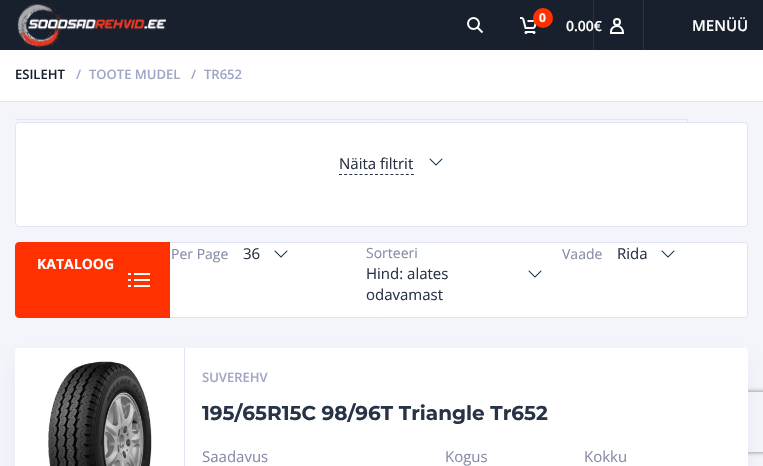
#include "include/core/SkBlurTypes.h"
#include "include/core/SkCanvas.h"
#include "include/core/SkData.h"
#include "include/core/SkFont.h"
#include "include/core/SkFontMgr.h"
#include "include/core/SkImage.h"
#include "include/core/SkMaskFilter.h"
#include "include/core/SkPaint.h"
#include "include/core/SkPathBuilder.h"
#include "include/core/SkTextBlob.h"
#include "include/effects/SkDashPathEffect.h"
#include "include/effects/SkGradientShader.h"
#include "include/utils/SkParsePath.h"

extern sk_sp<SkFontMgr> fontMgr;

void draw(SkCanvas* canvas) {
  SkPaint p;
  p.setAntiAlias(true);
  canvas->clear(SkColorSetRGB(244, 245, 251));
  p.setColor(SkColorSetRGB(24, 32, 46));
  canvas->drawRect(SkRect::MakeLTRB(0, 0, 763, 50), p);
  canvas->drawImageRect(SkImages::DeferredFromEncodedData(SkData::MakeFromFileName("images/1.png")), SkRect::MakeLTRB(17, 3, 166, 48), SkSamplingOptions());
  p.setStyle(SkPaint::kStroke_Style);
  p.setStrokeWidth(2);
  p.setColor(SK_ColorWHITE);
  canvas->drawPath(SkPathBuilder().moveTo(477, 27).lineTo(482.5f, 32.5f).detach(), p);
  canvas->drawCircle(473.5f, 23.5f, 5.5f, p);
  canvas->drawImageRect(SkImages::DeferredFromEncodedData(SkData::MakeFromFileName("images/2.png")), SkRect::MakeLTRB(520, 17, 537, 34), SkSamplingOptions());
  p.setStyle(SkPaint::kFill_Style);
  p.setColor(SkColorSetRGB(255, 49, 0));
  canvas->drawCircle(543, 18, 10, p);
  p.setColor(SkColorSetRGB(38, 51, 73));
  canvas->drawRect(SkRect::MakeLTRB(593, 0, 594, 50), p);
  p.setStyle(SkPaint::kStroke_Style);
  p.setColor(SK_ColorWHITE);
  canvas->drawPath(SkPathBuilder().moveTo(611, 31.5f).cubicTo(611, 25, 623, 23, 623, 33).lineTo(611, 33).close().detach(), p);
  canvas->drawCircle(617, 22, 3, p);
  p.setStyle(SkPaint::kFill_Style);
  p.setColor(SkColorSetRGB(38, 51, 73));
  canvas->drawRect(SkRect::MakeLTRB(643, 0, 644, 50), p);
  p.setColor(SK_ColorWHITE);
  canvas->drawRect(SkRect::MakeLTRB(0, 50, 763, 101), p);
  p.setColor(SkColorSetRGB(224, 228, 246));
  canvas->drawRect(SkRect::MakeLTRB(0, 101, 763, 102), p);
  canvas->drawRect(SkRect::MakeLTRB(15, 119, 688, 120), p);
  canvas->drawRect(SkRect::MakeLTRB(687, 119, 688, 122), p);
  p.setColor(SK_ColorWHITE);
  canvas->drawRoundRect(SkRect::MakeLTRB(15.5f, 122.5f, 747.5f, 226.5f), 3.5f, 3.5f, p);
  p.setStyle(SkPaint::kStroke_Style);
  p.setStrokeWidth(1);
  p.setColor(SkColorSetRGB(224, 228, 246));
  canvas->drawRoundRect(SkRect::MakeLTRB(15.5f, 122.5f, 747.5f, 226.5f), 3.5f, 3.5f, p);
  p.setColor(SkColorSetRGB(40, 51, 70));
  p.setPathEffect(SkDashPathEffect::Make({{3, 2.14f}}, 0));
  canvas->drawPath(SkPathBuilder().moveTo(339, 174.5f).lineTo(414, 174.5f).detach(), p);
  p.setPathEffect(nullptr);
  canvas->drawImageRect(SkImages::DeferredFromEncodedData(SkData::MakeFromFileName("images/3.png")), SkRect::MakeLTRB(429, 158, 443, 166), SkSamplingOptions());
  p.setStyle(SkPaint::kFill_Style);
  p.setColor(SK_ColorWHITE);
  canvas->drawRoundRect(SkRect::MakeLTRB(15.5f, 242.5f, 747.5f, 317.5f), 2.5f, 2.5f, p);
  p.setStyle(SkPaint::kStroke_Style);
  p.setColor(SkColorSetRGB(224, 228, 246));
  canvas->drawRoundRect(SkRect::MakeLTRB(15.5f, 242.5f, 747.5f, 317.5f), 2.5f, 2.5f, p);
  p.setStyle(SkPaint::kFill_Style);
  p.setColor(SkColorSetRGB(255, 49, 0));
  canvas->drawPath(SkPathBuilder().moveTo(19, 242).lineTo(170, 242).lineTo(170, 318).lineTo(19, 318).cubicTo(17, 318, 15, 316, 15, 314).lineTo(15, 246).cubicTo(15, 244, 17, 242, 19, 242).close().detach(), p);
  canvas->drawImageRect(SkImages::DeferredFromEncodedData(SkData::MakeFromFileName("images/4.png")), SkRect::MakeLTRB(128, 273, 150, 287), SkSamplingOptions());
  canvas->drawImageRect(SkImages::DeferredFromEncodedData(SkData::MakeFromFileName("images/3.png")), SkRect::MakeLTRB(274, 250, 288, 258), SkSamplingOptions());
  canvas->drawImageRect(SkImages::DeferredFromEncodedData(SkData::MakeFromFileName("images/3.png")), SkRect::MakeLTRB(528, 270, 542, 278), SkSamplingOptions());
  canvas->drawImageRect(SkImages::DeferredFromEncodedData(SkData::MakeFromFileName("images/3.png")), SkRect::MakeLTRB(661, 250, 675, 258), SkSamplingOptions());
  p.setColor(SkColorSetARGB(64, 192, 196, 215));
  p.setMaskFilter(SkMaskFilter::MakeBlur(kNormal_SkBlurStyle, 10));
  canvas->drawRoundRect(SkRect::MakeLTRB(15, 358, 748, 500), 4, 4, p);
  p.setMaskFilter(nullptr);
  canvas->save();
  canvas->clipPath(SkPathBuilder(SkPathFillType::kEvenOdd).moveTo(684, 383).lineTo(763, 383).lineTo(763, 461).lineTo(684, 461).close().moveTo(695, 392).lineTo(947, 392).cubicTo(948, 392, 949, 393, 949, 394).lineTo(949, 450).cubicTo(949, 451, 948, 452, 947, 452).lineTo(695, 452).cubicTo(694, 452, 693, 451, 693, 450).lineTo(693, 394).cubicTo(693, 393, 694, 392, 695, 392).close().detach(), true);
  p.setColor(SkColorSetRGB(128, 128, 128));
  p.setMaskFilter(SkMaskFilter::MakeBlur(kNormal_SkBlurStyle, 2.5f));
  canvas->drawRoundRect(SkRect::MakeLTRB(693, 392, 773, 452), 2, 2, p);
  p.setMaskFilter(nullptr);
  canvas->restore();
  p.setColor(SK_ColorWHITE);
  canvas->drawRoundRect(SkRect::MakeLTRB(15, 348, 748, 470), 4, 4, p);
  p.setColor(SkColorSetRGB(224, 228, 246));
  canvas->drawRect(SkRect::MakeLTRB(184, 348, 185, 466), p);
  canvas->drawImageRect(SkImages::DeferredFromEncodedData(SkData::MakeFromFileName("images/5.png")), SkRect::MakeLTRB(48, 361, 152, 466), SkSamplingOptions());
  SkFont font1(fontMgr->matchFamilyStyle("Open Sans", SkFontStyle::Bold()), 12);
  font1.setSubpixel(true);
  p.setColor(SK_ColorWHITE);
  canvas->drawString("0", 539, 22, font1, p);
  SkFont font2(fontMgr->matchFamilyStyle("Open Sans", SkFontStyle(600, SkFontStyle::kNormal_Width, SkFontStyle::kUpright_Slant)), 14);
  font2.setSubpixel(true);
  canvas->drawString("0.00€", 566, 31, font2, p);
  SkFont font3(fontMgr->matchFamilyStyle("Open Sans", SkFontStyle(600, SkFontStyle::kNormal_Width, SkFontStyle::kUpright_Slant)), 15);
  font3.setSubpixel(true);
  canvas->drawString("MENÜÜ", 692, 31, font3, p);
  SkFont font4(fontMgr->matchFamilyStyle("Open Sans", SkFontStyle(600, SkFontStyle::kNormal_Width, SkFontStyle::kUpright_Slant)), 13);
  font4.setSubpixel(true);
  p.setColor(SkColorSetRGB(24, 32, 46));
  canvas->drawString("ESILEHT", 15, 79, font4, p);
  p.setColor(SkColorSetRGB(160, 166, 197));
  canvas->drawString("/", 76, 79, font4, p);
  canvas->drawString("TOOTE MUDEL", 89, 79, font4, p);
  canvas->drawString("/", 191, 79, font4, p);
  canvas->drawString("TR652", 204, 79, font4, p);
  SkFont font5(fontMgr->matchFamilyStyle("Open Sans", SkFontStyle::Normal()), 15);
  font5.setSubpixel(true);
  p.setColor(SkColorSetRGB(40, 51, 70));
  canvas->drawString("Näita filtrit", 339, 169, font5, p);
  SkFont font6(fontMgr->matchFamilyStyle("Open Sans", SkFontStyle::Bold()), 14);
  font6.setSubpixel(true);
  p.setColor(SK_ColorWHITE);
  canvas->drawString("KATALOOG", 37, 269, font6, p);
  SkFont font7(fontMgr->matchFamilyStyle("Open Sans", SkFontStyle::Normal()), 14);
  font7.setSubpixel(true);
  p.setColor(SkColorSetRGB(134, 140, 167));
  canvas->drawString("Per Page", 171, 259, font7, p);
  p.setColor(SkColorSetRGB(40, 51, 70));
  canvas->drawString("36", 243, 259, font5, p);
  p.setColor(SkColorSetRGB(134, 140, 167));
  canvas->drawString("Sorteeri", 366, 258, font7, p);
  p.setColor(SkColorSetRGB(40, 51, 70));
  canvas->drawString("Hind: alates", 366, 279, font5, p);
  canvas->drawString("odavamast", 366, 300, font5, p);
  p.setColor(SkColorSetRGB(134, 140, 167));
  canvas->drawString("Vaade", 562, 259, font7, p);
  p.setColor(SkColorSetRGB(40, 51, 70));
  canvas->drawString("Rida", 617, 259, font5, p);
  p.setColor(SkColorSetRGB(160, 166, 197));
  canvas->drawString("SUVEREHV", 202, 382, font4, p);
  SkFont font8(fontMgr->matchFamilyStyle("Montserrat", SkFontStyle::Bold()), 20);
  font8.setSubpixel(true);
  p.setColor(SkColorSetRGB(40, 51, 70));
  canvas->drawString("195/65R15C 98/96T Triangle Tr652", 202, 420, font8, p);
  p.setColor(SkColorSetRGB(134, 140, 167));
  canvas->drawString("Saadavus", 202, 462, font5, p);
  canvas->drawString("Kogus", 445, 462, font5, p);
  canvas->drawString("Kokku", 584, 462, font5, p);
}
